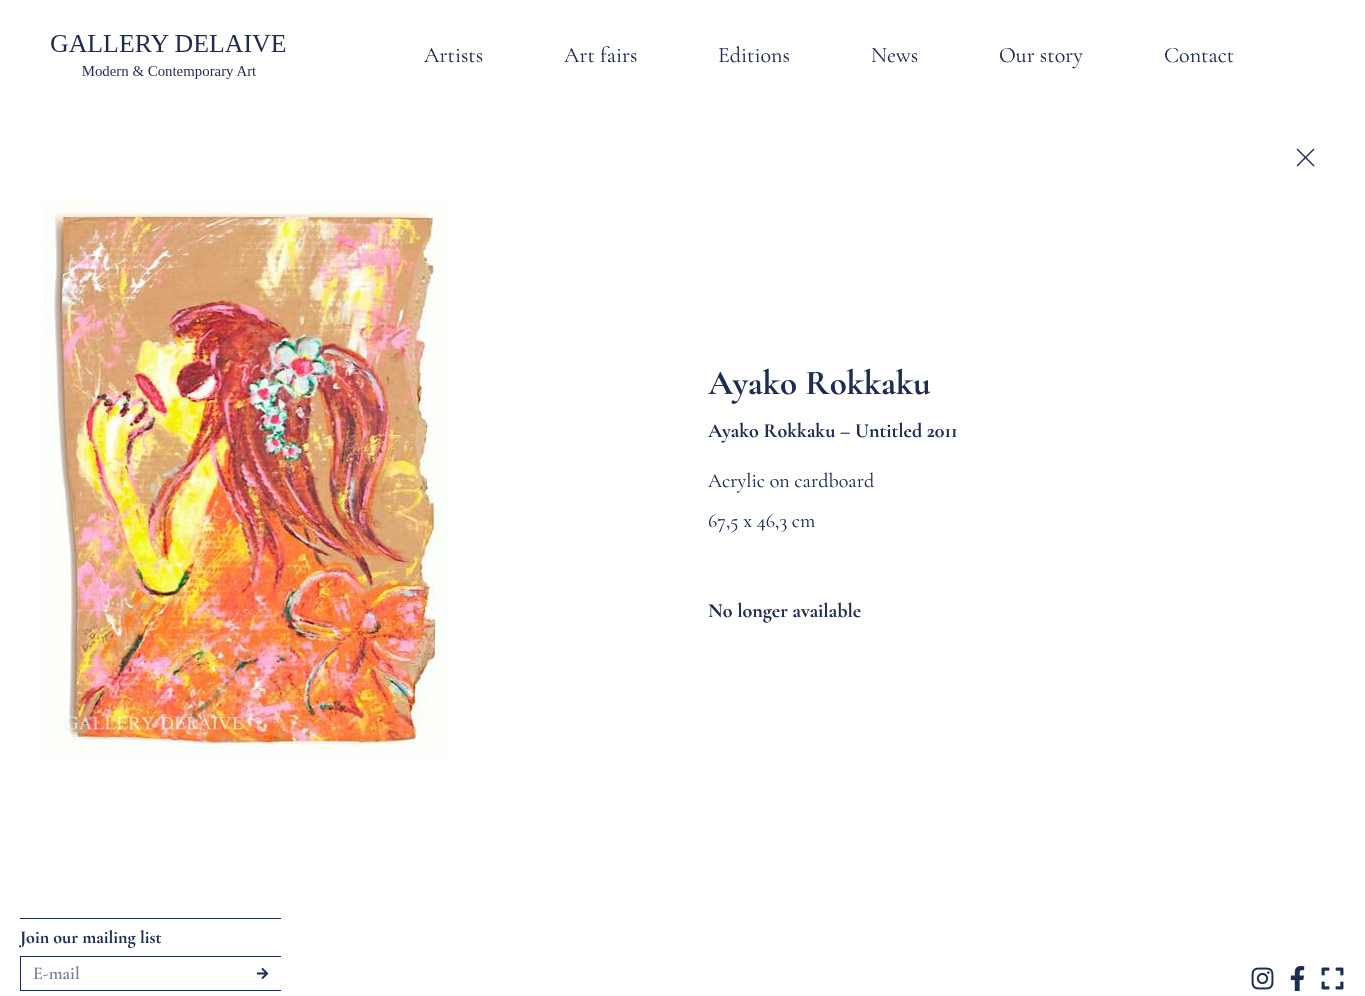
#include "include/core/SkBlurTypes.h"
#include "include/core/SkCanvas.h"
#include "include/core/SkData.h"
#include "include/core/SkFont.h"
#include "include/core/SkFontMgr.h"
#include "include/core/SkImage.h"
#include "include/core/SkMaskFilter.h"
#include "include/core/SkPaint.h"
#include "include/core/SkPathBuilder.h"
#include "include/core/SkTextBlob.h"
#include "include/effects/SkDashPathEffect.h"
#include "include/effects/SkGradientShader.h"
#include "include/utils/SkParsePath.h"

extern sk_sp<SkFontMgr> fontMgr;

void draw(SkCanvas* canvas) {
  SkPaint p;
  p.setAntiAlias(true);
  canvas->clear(SK_ColorWHITE);
  canvas->drawImageRect(SkImages::DeferredFromEncodedData(SkData::MakeFromFileName("images/1.png")), SkRect::MakeLTRB(51, 35, 286, 79), SkSamplingOptions());
  canvas->drawImageRect(SkImages::DeferredFromEncodedData(SkData::MakeFromFileName("images/2.png")), SkRect::MakeLTRB(43, 201, 450, 760), SkSamplingOptions());
  p.setColor(SkColorSetRGB(29, 43, 84));
  canvas->drawPath(SkPathBuilder().moveTo(1297.5f, 148.5f).lineTo(1314.5f, 165.5f).lineTo(1313.5f, 166.5f).lineTo(1296.5f, 149.5f).close().detach(), p);
  canvas->drawPath(SkPathBuilder().moveTo(1296.5f, 165.5f).lineTo(1313.5f, 148.5f).lineTo(1314.5f, 149.5f).lineTo(1297.5f, 166.5f).close().detach(), p);
  p.setColor(SkColorSetRGB(28, 44, 84));
  canvas->drawRect(SkRect::MakeLTRB(20, 918, 281, 919), p);
  p.setStyle(SkPaint::kStroke_Style);
  p.setStrokeWidth(1);
  canvas->drawRect(SkRect::MakeLTRB(20.5f, 956.5f, 280.5f, 990.5f), p);
  p.setStyle(SkPaint::kFill_Style);
  p.setColor(SK_ColorWHITE);
  canvas->drawRoundRect(SkRect::MakeLTRB(236, 957, 289, 990), 2, 2, p);
  canvas->drawImageRect(SkImages::DeferredFromEncodedData(SkData::MakeFromFileName("images/3.png")), SkRect::MakeLTRB(256, 968, 269, 979), SkSamplingOptions());
  canvas->drawImageRect(SkImages::DeferredFromEncodedData(SkData::MakeFromFileName("images/4.png")), SkRect::MakeLTRB(1251, 967, 1274, 990), SkSamplingOptions());
  canvas->drawImageRect(SkImages::DeferredFromEncodedData(SkData::MakeFromFileName("images/5.png")), SkRect::MakeLTRB(1290, 966, 1305, 991), SkSamplingOptions());
  canvas->drawImageRect(SkImages::DeferredFromEncodedData(SkData::MakeFromFileName("images/6.png")), SkRect::MakeLTRB(1321, 967, 1344, 990), SkSamplingOptions());
  SkFont font1(fontMgr->matchFamilyStyle("Cormorant Garamond", SkFontStyle::Normal()), 22);
  font1.setSubpixel(true);
  p.setColor(SkColorSetRGB(28, 44, 84));
  canvas->drawString("Artists", 424, 62, font1, p);
  canvas->drawString("Art fairs", 564, 62, font1, p);
  canvas->drawString("Editions", 718, 62, font1, p);
  canvas->drawString("News", 871, 62, font1, p);
  canvas->drawString("Our story", 999, 62, font1, p);
  canvas->drawString("Contact", 1164, 62, font1, p);
  SkFont font2(fontMgr->matchFamilyStyle("Cormorant Garamond", SkFontStyle::Bold()), 35);
  font2.setSubpixel(true);
  canvas->drawString("Ayako Rokkaku", 708, 394, font2, p);
  SkFont font3(fontMgr->matchFamilyStyle("Cormorant Garamond", SkFontStyle::Bold()), 20);
  font3.setSubpixel(true);
  canvas->drawString("Ayako Rokkaku – Untitled 2011", 708, 437, font3, p);
  SkFont font4(fontMgr->matchFamilyStyle("Cormorant Garamond", SkFontStyle::Normal()), 20);
  font4.setSubpixel(true);
  canvas->drawString("Acrylic on cardboard", 708, 487, font4, p);
  canvas->drawString("67,5 x 46,3 cm", 708, 527, font4, p);
  canvas->drawString("No longer available", 708, 617, font3, p);
  SkFont font5(fontMgr->matchFamilyStyle("Cormorant Garamond", SkFontStyle::Bold()), 18);
  font5.setSubpixel(true);
  canvas->drawString("Join our mailing list", 20, 943, font5, p);
  SkFont font6(fontMgr->matchFamilyStyle("Cormorant Garamond", SkFontStyle(600, SkFontStyle::kNormal_Width, SkFontStyle::kUpright_Slant)), 18);
  font6.setSubpixel(true);
  p.setColor(SkColorSetRGB(119, 128, 152));
  canvas->drawString("E-mail", 33, 979, font6, p);
}
